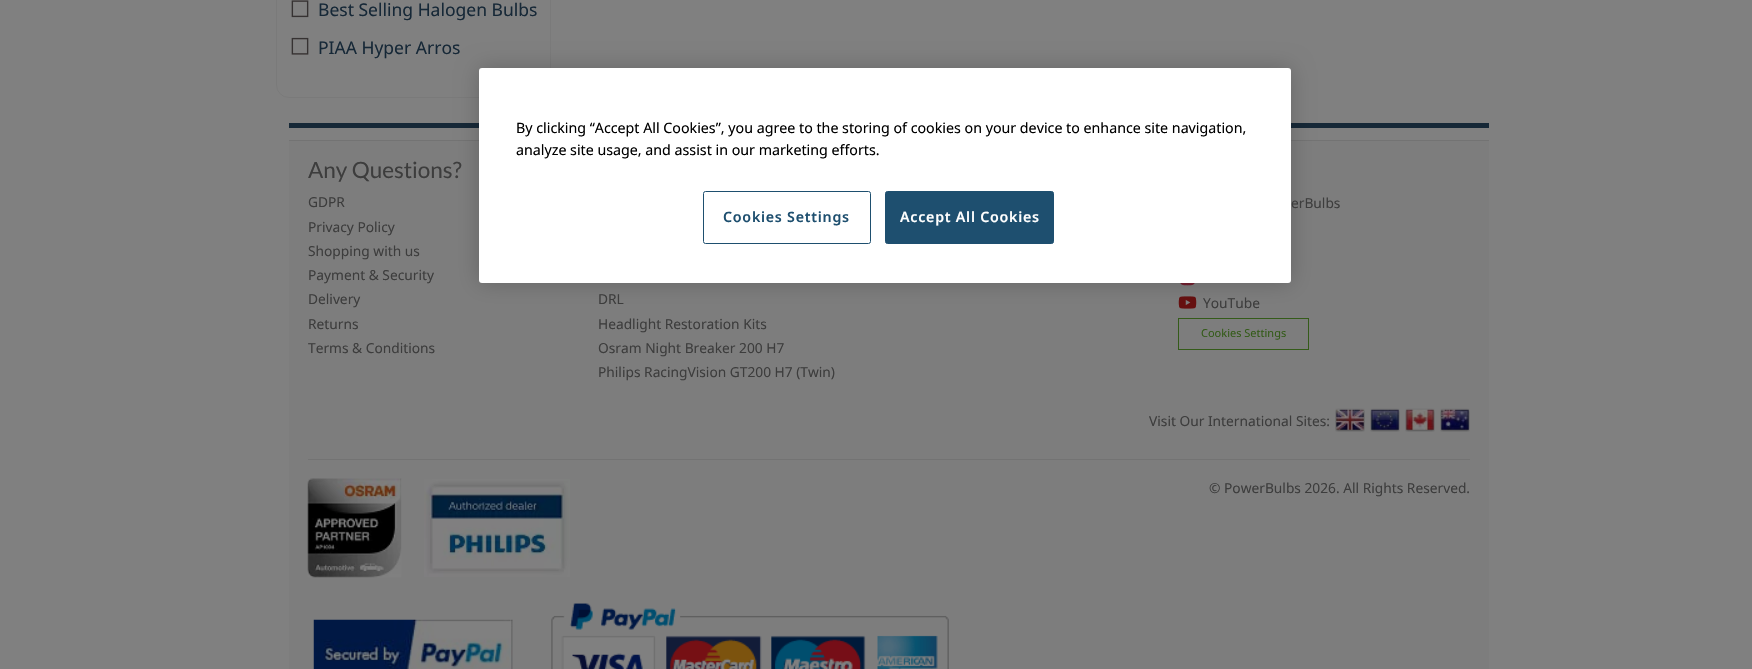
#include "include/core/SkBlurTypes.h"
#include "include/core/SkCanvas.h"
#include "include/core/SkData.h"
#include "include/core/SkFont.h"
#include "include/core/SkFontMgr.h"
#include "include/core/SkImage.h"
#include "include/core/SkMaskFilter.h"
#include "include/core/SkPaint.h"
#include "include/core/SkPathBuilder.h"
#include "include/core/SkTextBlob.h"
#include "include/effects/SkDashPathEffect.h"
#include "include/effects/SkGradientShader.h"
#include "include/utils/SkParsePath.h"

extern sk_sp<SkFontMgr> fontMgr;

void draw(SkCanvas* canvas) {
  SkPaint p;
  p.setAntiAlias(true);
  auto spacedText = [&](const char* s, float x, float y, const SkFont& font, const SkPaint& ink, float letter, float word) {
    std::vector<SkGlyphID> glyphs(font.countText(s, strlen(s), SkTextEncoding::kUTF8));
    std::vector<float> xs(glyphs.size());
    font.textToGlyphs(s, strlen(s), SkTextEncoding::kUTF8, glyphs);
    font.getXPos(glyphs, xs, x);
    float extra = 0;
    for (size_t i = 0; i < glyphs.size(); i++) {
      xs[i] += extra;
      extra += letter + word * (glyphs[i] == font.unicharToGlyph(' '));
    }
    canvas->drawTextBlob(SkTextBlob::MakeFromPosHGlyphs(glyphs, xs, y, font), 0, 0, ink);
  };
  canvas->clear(SkColorSetRGB(128, 128, 128));
  p.setStyle(SkPaint::kStroke_Style);
  p.setStrokeWidth(1);
  p.setColor(SkColorSetRGB(122, 122, 122));
  canvas->drawRoundRect(SkRect::MakeLTRB(276.5f, -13.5f, 550.5f, 97.5f), 12.5f, 12.5f, p);
  canvas->drawImageRect(SkImages::DeferredFromEncodedData(SkData::MakeFromFileName("images/1.png")), SkRect::MakeLTRB(291, 0, 309, 18), SkSamplingOptions());
  canvas->drawImageRect(SkImages::DeferredFromEncodedData(SkData::MakeFromFileName("images/2.png")), SkRect::MakeLTRB(291, 37, 309, 55), SkSamplingOptions());
  p.setStyle(SkPaint::kFill_Style);
  p.setColor(SkColorSetRGB(22, 40, 55));
  canvas->drawRect(SkRect::MakeLTRB(289, 123, 1489, 128), p);
  p.setColor(SkColorSetRGB(125, 125, 125));
  canvas->drawRect(SkRect::MakeLTRB(289, 141, 1489, 669), p);
  p.setColor(SkColorSetRGB(115, 115, 115));
  canvas->drawRect(SkRect::MakeLTRB(289, 140, 1489, 141), p);
  canvas->drawImageRect(SkImages::DeferredFromEncodedData(SkData::MakeFromFileName("images/3.png")), SkRect::MakeLTRB(1180, 283, 1195, 286), SkSamplingOptions());
  canvas->drawImageRect(SkImages::DeferredFromEncodedData(SkData::MakeFromFileName("images/4.png")), SkRect::MakeLTRB(1178, 296, 1197, 309), SkSamplingOptions());
  p.setStyle(SkPaint::kStroke_Style);
  p.setColor(SkColorSetRGB(52, 91, 25));
  canvas->drawRect(SkRect::MakeLTRB(1178.5f, 318.5f, 1308.5f, 349.5f), p);
  canvas->drawImageRect(SkImages::DeferredFromEncodedData(SkData::MakeFromFileName("images/5.png")), SkRect::MakeLTRB(1335, 408, 1365, 432), SkSamplingOptions());
  canvas->drawImageRect(SkImages::DeferredFromEncodedData(SkData::MakeFromFileName("images/6.png")), SkRect::MakeLTRB(1370, 408, 1400, 432), SkSamplingOptions());
  canvas->drawImageRect(SkImages::DeferredFromEncodedData(SkData::MakeFromFileName("images/7.png")), SkRect::MakeLTRB(1405, 408, 1435, 432), SkSamplingOptions());
  canvas->drawImageRect(SkImages::DeferredFromEncodedData(SkData::MakeFromFileName("images/8.png")), SkRect::MakeLTRB(1440, 408, 1470, 432), SkSamplingOptions());
  p.setStyle(SkPaint::kFill_Style);
  p.setColor(SkColorSetRGB(115, 115, 115));
  canvas->drawRect(SkRect::MakeLTRB(308, 459, 1470, 460), p);
  canvas->drawImageRect(SkImages::DeferredFromEncodedData(SkData::MakeFromFileName("images/9.png")), SkRect::MakeLTRB(307, 478, 402, 578), SkSamplingOptions());
  canvas->drawImageRect(SkImages::DeferredFromEncodedData(SkData::MakeFromFileName("images/10.png")), SkRect::MakeLTRB(424, 479, 570, 577), SkSamplingOptions());
  canvas->drawImageRect(SkImages::DeferredFromEncodedData(SkData::MakeFromFileName("images/11.png")), SkRect::MakeLTRB(313, 619, 513, 669), SkSamplingOptions());
  canvas->drawImageRect(SkImages::DeferredFromEncodedData(SkData::MakeFromFileName("images/12.png")), SkRect::MakeLTRB(551, 603, 949, 669), SkSamplingOptions());
  p.setColor(SkColorSetARGB(51, 0, 0, 0));
  p.setMaskFilter(SkMaskFilter::MakeBlur(kNormal_SkBlurStyle, 11));
  canvas->drawRoundRect(SkRect::MakeLTRB(479, 68, 1291, 283), 3, 3, p);
  p.setMaskFilter(nullptr);
  p.setColor(SK_ColorWHITE);
  canvas->drawRoundRect(SkRect::MakeLTRB(479, 68, 1291, 283), 3, 3, p);
  p.setStyle(SkPaint::kStroke_Style);
  p.setColor(SkColorSetRGB(30, 79, 111));
  canvas->drawRoundRect(SkRect::MakeLTRB(703.5f, 191.5f, 870.5f, 243.5f), 2, 2, p);
  p.setStyle(SkPaint::kFill_Style);
  canvas->drawRoundRect(SkRect::MakeLTRB(885.5f, 191.5f, 1053.5f, 243.5f), 2, 2, p);
  p.setStyle(SkPaint::kStroke_Style);
  canvas->drawRoundRect(SkRect::MakeLTRB(885.5f, 191.5f, 1053.5f, 243.5f), 2, 2, p);
  SkFont font1(fontMgr->matchFamilyStyle("Noto Sans", SkFontStyle::Normal()), 17.5f);
  font1.setSubpixel(true);
  p.setStyle(SkPaint::kFill_Style);
  p.setColor(SkColorSetRGB(22, 40, 55));
  canvas->drawString("Best Selling Halogen Bulbs", 318, 16, font1, p);
  canvas->drawString("PIAA Hyper Arros", 318, 54, font1, p);
  SkFont font2(fontMgr->matchFamilyStyle("Lato", SkFontStyle::Normal()), 22.5f);
  font2.setSubpixel(true);
  p.setColor(SkColorSetRGB(61, 61, 61));
  canvas->drawString("Any Questions?", 308, 178, font2, p);
  SkFont font3(fontMgr->matchFamilyStyle("Noto Sans", SkFontStyle::Normal()), 13.75f);
  font3.setSubpixel(true);
  canvas->drawString("GDPR", 308, 207, font3, p);
  canvas->drawString("Privacy Policy", 308, 232, font3, p);
  canvas->drawString("Shopping with us", 308, 256, font3, p);
  canvas->drawString("Payment & Security", 308, 280, font3, p);
  canvas->drawString("Delivery", 308, 304, font3, p);
  canvas->drawString("Returns", 308, 329, font3, p);
  canvas->drawString("Terms & Conditions", 308, 353, font3, p);
  canvas->drawString("DRL", 598, 304, font3, p);
  canvas->drawString("Headlight Restoration Kits", 598, 329, font3, p);
  canvas->drawString("Osram Night Breaker 200 H7", 598, 353, font3, p);
  canvas->drawString("Philips RacingVision GT200 H7 (Twin)", 598, 377, font3, p);
  canvas->drawString("erBulbs", 1291, 208, font3, p);
  canvas->drawString("YouTube", 1203, 308, font3, p);
  SkFont font4(fontMgr->matchFamilyStyle("Noto Sans", SkFontStyle::Normal()), 11);
  font4.setSubpixel(true);
  p.setColor(SkColorSetRGB(52, 91, 25));
  canvas->drawString("Cookies Settings", 1201, 337, font4, p);
  p.setColor(SkColorSetRGB(61, 61, 61));
  canvas->drawString("Visit Our International Sites:", 1149, 426, font3, p);
  canvas->drawString("© PowerBulbs 2026. All Rights Reserved.", 1209, 493, font3, p);
  SkFont font5(fontMgr->matchFamilyStyle("Noto Sans", SkFontStyle::Normal()), 14.23f);
  font5.setSubpixel(true);
  p.setColor(SK_ColorBLACK);
  canvas->drawString("By clicking “Accept All Cookies”, you agree to the storing of cookies on your device to enhance site navigation,", 516, 133, font5, p);
  canvas->drawString("analyze site usage, and assist in our marketing efforts.", 516, 155, font5, p);
  SkFont font6(fontMgr->matchFamilyStyle("Noto Sans", SkFontStyle(600, SkFontStyle::kNormal_Width, SkFontStyle::kUpright_Slant)), 14.23f);
  font6.setSubpixel(true);
  p.setColor(SkColorSetRGB(30, 79, 111));
  spacedText("Cookies Settings", 723, 222, font6, p, 0.75f, 0);
  p.setColor(SK_ColorWHITE);
  spacedText("Accept All Cookies", 900, 222, font6, p, 0.75f, 0);
}
